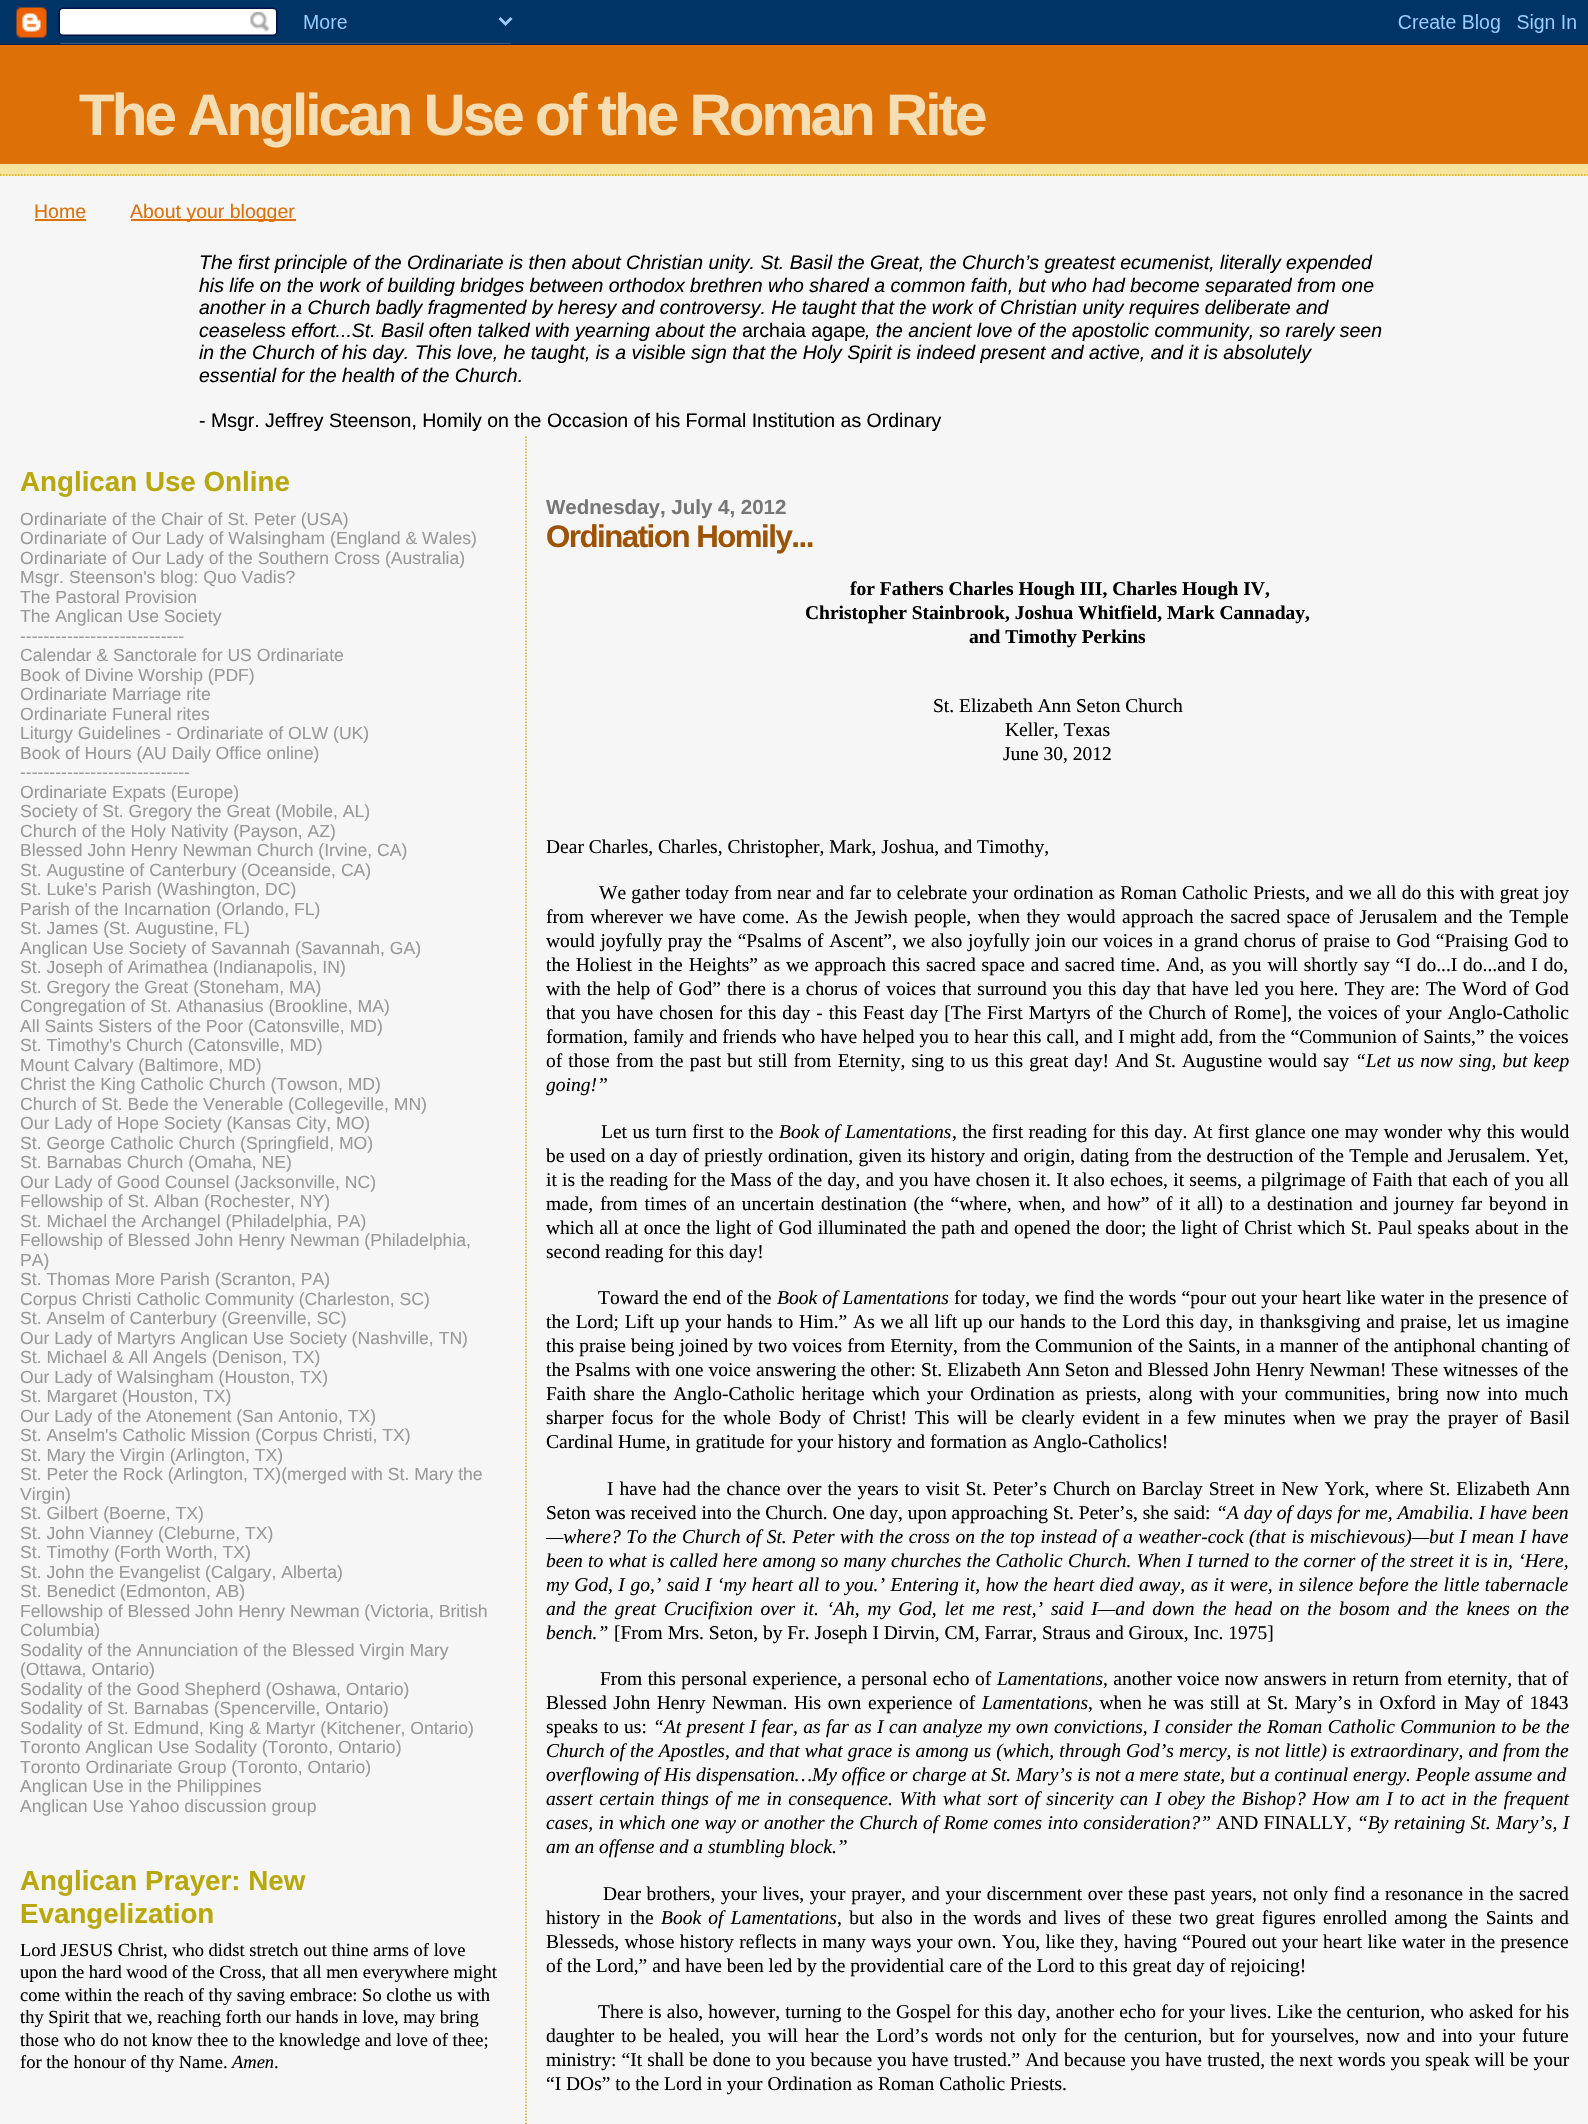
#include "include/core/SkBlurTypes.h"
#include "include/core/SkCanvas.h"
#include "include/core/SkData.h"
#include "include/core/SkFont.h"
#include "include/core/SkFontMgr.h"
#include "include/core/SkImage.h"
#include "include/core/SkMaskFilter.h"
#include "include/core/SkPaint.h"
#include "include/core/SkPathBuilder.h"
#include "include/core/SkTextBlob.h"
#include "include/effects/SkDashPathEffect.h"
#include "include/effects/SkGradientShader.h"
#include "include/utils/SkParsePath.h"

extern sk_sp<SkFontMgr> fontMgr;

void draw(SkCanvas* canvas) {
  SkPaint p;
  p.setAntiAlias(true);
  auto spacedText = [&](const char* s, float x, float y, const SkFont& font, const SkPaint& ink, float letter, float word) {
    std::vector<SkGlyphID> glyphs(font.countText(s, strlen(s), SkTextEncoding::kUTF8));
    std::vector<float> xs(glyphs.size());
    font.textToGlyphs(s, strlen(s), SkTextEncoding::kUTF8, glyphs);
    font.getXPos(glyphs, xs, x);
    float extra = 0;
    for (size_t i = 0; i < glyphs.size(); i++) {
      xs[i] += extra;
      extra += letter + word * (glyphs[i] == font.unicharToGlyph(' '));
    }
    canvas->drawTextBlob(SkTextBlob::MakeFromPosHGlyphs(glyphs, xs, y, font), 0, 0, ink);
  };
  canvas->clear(SkColorSetRGB(246, 246, 246));
  canvas->drawImageRect(SkImages::DeferredFromEncodedData(SkData::MakeFromFileName("images/1.png")), SkRect::MakeLTRB(0, 0, 1588, 45), SkSamplingOptions());
  p.setColor(SkColorSetRGB(245, 227, 158));
  canvas->drawRect(SkRect::MakeLTRB(0, 164, 1588, 176), p);
  p.setStyle(SkPaint::kStroke_Style);
  p.setStrokeWidth(1.5f);
  p.setColor(SkColorSetRGB(224, 173, 18));
  p.setPathEffect(SkDashPathEffect::Make({{1.5f, 1.5f}}, 0));
  canvas->drawPath(SkPathBuilder().moveTo(0, 175).lineTo(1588.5f, 175).detach(), p);
  p.setPathEffect(nullptr);
  p.setStyle(SkPaint::kFill_Style);
  p.setColor(SkColorSetRGB(222, 112, 8));
  canvas->drawRect(SkRect::MakeLTRB(0, 45, 1588, 164), p);
  canvas->drawRect(SkRect::MakeLTRB(35, 219, 86, 221), p);
  canvas->drawRect(SkRect::MakeLTRB(131, 219, 296, 221), p);
  p.setStyle(SkPaint::kStroke_Style);
  p.setColor(SkColorSetRGB(224, 173, 18));
  p.setPathEffect(SkDashPathEffect::Make({{1.5f, 1.5f}}, 0));
  canvas->drawPath(SkPathBuilder().moveTo(526, 436.5f).lineTo(526, 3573).detach(), p);
  p.setPathEffect(nullptr);
  SkFont font1(fontMgr->matchFamilyStyle("Liberation Sans", SkFontStyle::Bold()), 58.5f);
  font1.setSubpixel(true);
  p.setStyle(SkPaint::kFill_Style);
  p.setColor(SkColorSetRGB(245, 222, 179));
  spacedText("The Anglican Use of the Roman Rite", 79, 135, font1, p, -3, 0);
  SkFont font2(fontMgr->matchFamilyStyle("Liberation Sans", SkFontStyle::Normal()), 19.5f);
  font2.setSubpixel(true);
  p.setColor(SkColorSetRGB(222, 112, 8));
  canvas->drawString("Home", 34, 218, font2, p);
  canvas->drawString("About your blogger", 130, 218, font2, p);
  SkFont font3(fontMgr->matchFamilyStyle("Liberation Sans", SkFontStyle::Italic()), 19.5f);
  font3.setSubpixel(true);
  p.setColor(SK_ColorBLACK);
  canvas->drawString("The first principle of the Ordinariate is then about Christian unity. St. Basil the Great, the Church’s greatest ecumenist, literally expended", 199, 269, font3, p);
  canvas->drawString("his life on the work of building bridges between orthodox brethren who shared a common faith, but who had become separated from one", 199, 292, font3, p);
  canvas->drawString("another in a Church badly fragmented by heresy and controversy. He taught that the work of Christian unity requires deliberate and", 199, 314, font3, p);
  canvas->drawString("ceaseless effort...St. Basil often talked with yearning about the", 199, 337, font3, p);
  canvas->drawString("archaia agape", 742, 337, font2, p);
  canvas->drawString(", the ancient love of the apostolic community, so rarely seen", 865, 337, font3, p);
  canvas->drawString("in the Church of his day. This love, he taught, is a visible sign that the Holy Spirit is indeed present and active, and it is absolutely", 199, 359, font3, p);
  canvas->drawString("essential for the health of the Church.", 199, 382, font3, p);
  canvas->drawString("- Msgr. Jeffrey Steenson, Homily on the Occasion of his Formal Institution as Ordinary", 199, 427, font2, p);
  SkFont font4(fontMgr->matchFamilyStyle("Liberation Sans", SkFontStyle::Bold()), 27.75f);
  font4.setSubpixel(true);
  p.setColor(SkColorSetRGB(184, 168, 13));
  canvas->drawString("Anglican Use Online", 20, 491, font4, p);
  SkFont font5(fontMgr->matchFamilyStyle("Liberation Sans", SkFontStyle::Normal()), 17.6f);
  font5.setSubpixel(true);
  p.setColor(SkColorSetRGB(153, 153, 153));
  canvas->drawString("Ordinariate of the Chair of St. Peter (USA)", 20, 525, font5, p);
  canvas->drawString("Ordinariate of Our Lady of Walsingham (England & Wales)", 20, 544, font5, p);
  canvas->drawString("Ordinariate of Our Lady of the Southern Cross (Australia)", 20, 564, font5, p);
  canvas->drawString("Msgr. Steenson's blog: Quo Vadis?", 20, 583, font5, p);
  canvas->drawString("The Pastoral Provision", 20, 603, font5, p);
  canvas->drawString("The Anglican Use Society", 20, 622, font5, p);
  canvas->drawString("----------------------------", 20, 642, font5, p);
  canvas->drawString("Calendar & Sanctorale for US Ordinariate", 20, 661, font5, p);
  canvas->drawString("Book of Divine Worship (PDF)", 20, 681, font5, p);
  canvas->drawString("Ordinariate Marriage rite", 20, 700, font5, p);
  canvas->drawString("Ordinariate Funeral rites", 20, 720, font5, p);
  canvas->drawString("Liturgy Guidelines - Ordinariate of OLW (UK)", 20, 739, font5, p);
  canvas->drawString("Book of Hours (AU Daily Office online)", 20, 759, font5, p);
  canvas->drawString("-----------------------------", 20, 778, font5, p);
  canvas->drawString("Ordinariate Expats (Europe)", 20, 798, font5, p);
  canvas->drawString("Society of St. Gregory the Great (Mobile, AL)", 20, 817, font5, p);
  canvas->drawString("Church of the Holy Nativity (Payson, AZ)", 20, 837, font5, p);
  canvas->drawString("Blessed John Henry Newman Church (Irvine, CA)", 20, 856, font5, p);
  canvas->drawString("St. Augustine of Canterbury (Oceanside, CA)", 20, 876, font5, p);
  canvas->drawString("St. Luke's Parish (Washington, DC)", 20, 895, font5, p);
  canvas->drawString("Parish of the Incarnation (Orlando, FL)", 20, 915, font5, p);
  canvas->drawString("St. James (St. Augustine, FL)", 20, 934, font5, p);
  canvas->drawString("Anglican Use Society of Savannah (Savannah, GA)", 20, 954, font5, p);
  canvas->drawString("St. Joseph of Arimathea (Indianapolis, IN)", 20, 973, font5, p);
  canvas->drawString("St. Gregory the Great (Stoneham, MA)", 20, 993, font5, p);
  canvas->drawString("Congregation of St. Athanasius (Brookline, MA)", 20, 1012, font5, p);
  canvas->drawString("All Saints Sisters of the Poor (Catonsville, MD)", 20, 1032, font5, p);
  canvas->drawString("St. Timothy's Church (Catonsville, MD)", 20, 1051, font5, p);
  canvas->drawString("Mount Calvary (Baltimore, MD)", 20, 1071, font5, p);
  canvas->drawString("Christ the King Catholic Church (Towson, MD)", 20, 1090, font5, p);
  canvas->drawString("Church of St. Bede the Venerable (Collegeville, MN)", 20, 1110, font5, p);
  canvas->drawString("Our Lady of Hope Society (Kansas City, MO)", 20, 1129, font5, p);
  canvas->drawString("St. George Catholic Church (Springfield, MO)", 20, 1149, font5, p);
  canvas->drawString("St. Barnabas Church (Omaha, NE)", 20, 1168, font5, p);
  canvas->drawString("Our Lady of Good Counsel (Jacksonville, NC)", 20, 1188, font5, p);
  canvas->drawString("Fellowship of St. Alban (Rochester, NY)", 20, 1207, font5, p);
  canvas->drawString("St. Michael the Archangel (Philadelphia, PA)", 20, 1227, font5, p);
  canvas->drawString("Fellowship of Blessed John Henry Newman (Philadelphia,", 20, 1246, font5, p);
  canvas->drawString("PA)", 20, 1266, font5, p);
  canvas->drawString("St. Thomas More Parish (Scranton, PA)", 20, 1285, font5, p);
  canvas->drawString("Corpus Christi Catholic Community (Charleston, SC)", 20, 1305, font5, p);
  canvas->drawString("St. Anselm of Canterbury (Greenville, SC)", 20, 1324, font5, p);
  canvas->drawString("Our Lady of Martyrs Anglican Use Society (Nashville, TN)", 20, 1344, font5, p);
  canvas->drawString("St. Michael & All Angels (Denison, TX)", 20, 1363, font5, p);
  canvas->drawString("Our Lady of Walsingham (Houston, TX)", 20, 1383, font5, p);
  canvas->drawString("St. Margaret (Houston, TX)", 20, 1402, font5, p);
  canvas->drawString("Our Lady of the Atonement (San Antonio, TX)", 20, 1422, font5, p);
  canvas->drawString("St. Anselm's Catholic Mission (Corpus Christi, TX)", 20, 1441, font5, p);
  canvas->drawString("St. Mary the Virgin (Arlington, TX)", 20, 1461, font5, p);
  canvas->drawString("St. Peter the Rock (Arlington, TX)(merged with St. Mary the", 20, 1480, font5, p);
  canvas->drawString("Virgin)", 20, 1500, font5, p);
  canvas->drawString("St. Gilbert (Boerne, TX)", 20, 1519, font5, p);
  canvas->drawString("St. John Vianney (Cleburne, TX)", 20, 1539, font5, p);
  canvas->drawString("St. Timothy (Forth Worth, TX)", 20, 1558, font5, p);
  canvas->drawString("St. John the Evangelist (Calgary, Alberta)", 20, 1578, font5, p);
  canvas->drawString("St. Benedict (Edmonton, AB)", 20, 1597, font5, p);
  canvas->drawString("Fellowship of Blessed John Henry Newman (Victoria, British", 20, 1617, font5, p);
  canvas->drawString("Columbia)", 20, 1636, font5, p);
  canvas->drawString("Sodality of the Annunciation of the Blessed Virgin Mary", 20, 1656, font5, p);
  canvas->drawString("(Ottawa, Ontario)", 20, 1675, font5, p);
  canvas->drawString("Sodality of the Good Shepherd (Oshawa, Ontario)", 20, 1695, font5, p);
  canvas->drawString("Sodality of St. Barnabas (Spencerville, Ontario)", 20, 1714, font5, p);
  canvas->drawString("Sodality of St. Edmund, King & Martyr (Kitchener, Ontario)", 20, 1734, font5, p);
  canvas->drawString("Toronto Anglican Use Sodality (Toronto, Ontario)", 20, 1753, font5, p);
  canvas->drawString("Toronto Ordinariate Group (Toronto, Ontario)", 20, 1773, font5, p);
  canvas->drawString("Anglican Use in the Philippines", 20, 1792, font5, p);
  canvas->drawString("Anglican Use Yahoo discussion group", 20, 1812, font5, p);
  p.setColor(SkColorSetRGB(184, 168, 13));
  canvas->drawString("Anglican Prayer: New", 20, 1890, font4, p);
  canvas->drawString("Evangelization", 20, 1923, font4, p);
  SkFont font6(fontMgr->matchFamilyStyle("Liberation Serif", SkFontStyle::Normal()), 18.5f);
  font6.setSubpixel(true);
  p.setColor(SK_ColorBLACK);
  canvas->drawString("Lord JESUS Christ, who didst stretch out thine arms of love", 20, 1956, font6, p);
  canvas->drawString("upon the hard wood of the Cross, that all men everywhere might", 20, 1978, font6, p);
  canvas->drawString("come within the reach of thy saving embrace: So clothe us with", 20, 2001, font6, p);
  canvas->drawString("thy Spirit that we, reaching forth our hands in love, may bring", 20, 2023, font6, p);
  canvas->drawString("those who do not know thee to the knowledge and love of thee;", 20, 2046, font6, p);
  canvas->drawString("for the honour of thy Name.", 20, 2068, font6, p);
  SkFont font7(fontMgr->matchFamilyStyle("Liberation Serif", SkFontStyle::Italic()), 18.5f);
  font7.setSubpixel(true);
  canvas->drawString("Amen", 232, 2068, font7, p);
  canvas->drawString(".", 274, 2068, font6, p);
  SkFont font8(fontMgr->matchFamilyStyle("Liberation Sans", SkFontStyle::Bold()), 20.5f);
  font8.setSubpixel(true);
  p.setColor(SkColorSetRGB(119, 119, 119));
  canvas->drawString("Wednesday, July 4, 2012", 546, 514, font8, p);
  SkFont font9(fontMgr->matchFamilyStyle("Liberation Sans", SkFontStyle::Bold()), 31.25f);
  font9.setSubpixel(true);
  p.setColor(SkColorSetRGB(158, 82, 5));
  spacedText("Ordination Homily...", 546, 547, font9, p, -1.5f, 0);
  SkFont font10(fontMgr->matchFamilyStyle("Liberation Serif", SkFontStyle::Bold()), 19.5f);
  font10.setSubpixel(true);
  p.setColor(SK_ColorBLACK);
  canvas->drawString("for Fathers Charles Hough III, Charles Hough IV,", 850, 595, font10, p);
  canvas->drawString("Christopher Stainbrook, Joshua Whitfield, Mark Cannaday,", 805, 619, font10, p);
  canvas->drawString("and Timothy Perkins", 969, 643, font10, p);
  SkFont font11(fontMgr->matchFamilyStyle("Liberation Serif", SkFontStyle::Normal()), 19.5f);
  font11.setSubpixel(true);
  canvas->drawString("St. Elizabeth Ann Seton Church", 933, 712, font11, p);
  canvas->drawString("Keller, Texas", 1005, 736, font11, p);
  canvas->drawString("June 30, 2012", 1003, 760, font11, p);
  canvas->drawString("Dear Charles, Charles, Christopher, Mark, Joshua, and Timothy,", 546, 853, font11, p);
  spacedText("We gather today from near and far to celebrate your ordination as Roman Catholic Priests, and we all do this with great joy", 599, 899, font11, p, 0, 0.4f);
  spacedText("from wherever we have come. As the Jewish people, when they would approach the sacred space of Jerusalem and the Temple", 546, 923, font11, p, 0, 1.7f);
  spacedText("would joyfully pray the “Psalms of Ascent”, we also joyfully join our voices in a grand chorus of praise to God “Praising God to", 546, 947, font11, p, 0, 0.8f);
  spacedText("the Holiest in the Heights” as we approach this sacred space and sacred time. And, as you will shortly say “I do...I do...and I do,", 546, 971, font11, p, 0, 1);
  spacedText("with the help of God” there is a chorus of voices that surround you this day that have led you here. They are: The Word of God", 546, 995, font11, p, 0, 1.2f);
  spacedText("that you have chosen for this day - this Feast day [The First Martyrs of the Church of Rome], the voices of your Anglo-Catholic", 546, 1019, font11, p, 0, 1.1f);
  spacedText("formation, family and friends who have helped you to hear this call, and I might add, from the “Communion of Saints,” the voices", 546, 1043, font11, p, 0, 0.3f);
  spacedText("of those from the past but still from Eternity, sing to us this great day! And St. Augustine would say", 546, 1067, font11, p, 0, 1.25f);
  SkFont font12(fontMgr->matchFamilyStyle("Liberation Serif", SkFontStyle::Italic()), 19.5f);
  font12.setSubpixel(true);
  spacedText("“Let us now sing, but keep", 1355, 1067, font12, p, 0, 1.25f);
  canvas->drawString("going!”", 546, 1091, font12, p);
  spacedText("Let us turn first to the", 601, 1138, font11, p, 0, 0.6f);
  spacedText("Book of Lamentations", 779, 1138, font12, p, 0, 0.6f);
  spacedText(", the first reading for this day. At first glance one may wonder why this would", 952, 1138, font11, p, 0, 0.6f);
  spacedText("be used on a day of priestly ordination, given its history and origin, dating from the destruction of the Temple and Jerusalem. Yet,", 546, 1162, font11, p, 0, 0.4f);
  spacedText("it is the reading for the Mass of the day, and you have chosen it. It also echoes, it seems, a pilgrimage of Faith that each of you all", 546, 1186, font11, p, 0, 0.4f);
  spacedText("made, from times of an uncertain destination (the “where, when, and how” of it all) to a destination and journey far beyond in", 546, 1210, font11, p, 0, 1.9f);
  spacedText("which all at once the light of God illuminated the path and opened the door; the light of Christ which St. Paul speaks about in the", 546, 1234, font11, p, 0, 0.65f);
  canvas->drawString("second reading for this day!", 546, 1258, font11, p);
  spacedText("Toward the end of the", 598, 1304, font11, p, 0, 0.3f);
  spacedText("Book of Lamentations", 777, 1304, font12, p, 0, 0.3f);
  spacedText("for today, we find the words “pour out your heart like water in the presence of", 954, 1304, font11, p, 0, 0.3f);
  spacedText("the Lord; Lift up your hands to Him.” As we all lift up our hands to the Lord this day, in thanksgiving and praise, let us imagine", 546, 1328, font11, p, 0, 0.95f);
  spacedText("this praise being joined by two voices from Eternity, from the Communion of the Saints, in a manner of the antiphonal chanting of", 546, 1352, font11, p, 0, 0.25f);
  spacedText("the Psalms with one voice answering the other: St. Elizabeth Ann Seton and Blessed John Henry Newman! These witnesses of the", 546, 1376, font11, p, 0, 0.3f);
  spacedText("Faith share the Anglo-Catholic heritage which your Ordination as priests, along with your communities, bring now into much", 546, 1400, font11, p, 0, 2.5f);
  spacedText("sharper focus for the whole Body of Christ! This will be clearly evident in a few minutes when we pray the prayer of Basil", 546, 1424, font11, p, 0, 2.9f);
  canvas->drawString("Cardinal Hume, in gratitude for your history and formation as Anglo-Catholics!", 546, 1448, font11, p);
  spacedText("I have had the chance over the years to visit St. Peter’s Church on Barclay Street in New York, where St. Elizabeth Ann", 607, 1495, font11, p, 0, 1.2f);
  canvas->drawString("Seton was received into the Church. One day, upon approaching St. Peter’s, she said:", 546, 1519, font11, p);
  canvas->drawString("“A day of days for me, Amabilia. I have been", 1216, 1519, font12, p);
  spacedText("—where? To the Church of St. Peter with the cross on the top instead of a weather-cock (that is mischievous)—but I mean I have", 546, 1543, font12, p, 0, 0.7f);
  spacedText("been to what is called here among so many churches the Catholic Church. When I turned to the corner of the street it is in, ‘Here,", 546, 1567, font12, p, 0, 0.35f);
  spacedText("my God, I go,’ said I ‘my heart all to you.’ Entering it, how the heart died away, as it were, in silence before the little tabernacle", 546, 1591, font12, p, 0, 0.7f);
  spacedText("and the great Crucifixion over it. ‘Ah, my God, let me rest,’ said I—and down the head on the bosom and the knees on the", 546, 1615, font12, p, 0, 3);
  canvas->drawString("bench.”", 546, 1639, font12, p);
  canvas->drawString("[From Mrs. Seton, by Fr. Joseph I Dirvin, CM, Farrar, Straus and Giroux, Inc. 1975]", 614, 1639, font11, p);
  spacedText("From this personal experience, a personal echo of", 600, 1685, font11, p, 0, 0.5f);
  canvas->drawString("Lamentations", 997, 1685, font12, p);
  spacedText(", another voice now answers in return from eternity, that of", 1103, 1685, font11, p, 0, 0.5f);
  spacedText("Blessed John Henry Newman. His own experience of", 546, 1709, font11, p, 0, 1.75f);
  canvas->drawString("Lamentations", 982, 1709, font12, p);
  spacedText(", when he was still at St. Mary’s in Oxford in May of 1843", 1088, 1709, font11, p, 0, 1.75f);
  spacedText("speaks to us:", 546, 1733, font11, p, 0, 0.6f);
  spacedText("“At present I fear, as far as I can analyze my own convictions, I consider the Roman Catholic Communion to be the", 653, 1733, font12, p, 0, 0.6f);
  spacedText("Church of the Apostles, and that what grace is among us (which, through God’s mercy, is not little) is extraordinary, and from the", 546, 1757, font12, p, 0, 0.25f);
  canvas->drawString("overflowing of His dispensation…My office or charge at St. Mary’s is not a mere state, but a continual energy. People assume and", 546, 1781, font12, p);
  spacedText("assert certain things of me in consequence. With what sort of sincerity can I obey the Bishop? How am I to act in the frequent", 546, 1805, font12, p, 0, 1.75f);
  spacedText("cases, in which one way or another the Church of Rome comes into consideration?”", 546, 1829, font12, p, 0, 0.5f);
  spacedText("AND FINALLY,", 1216, 1829, font11, p, 0, 0.5f);
  spacedText("“By retaining St. Mary’s, I", 1357, 1829, font12, p, 0, 0.5f);
  canvas->drawString("am an offense and a stumbling block.”", 546, 1853, font12, p);
  spacedText("Dear brothers, your lives, your prayer, and your discernment over these past years, not only find a resonance in the sacred", 603, 1900, font11, p, 0, 0.8f);
  spacedText("history in the", 546, 1924, font11, p, 0, 2.4f);
  spacedText("Book of Lamentations", 661, 1924, font12, p, 0, 2.4f);
  spacedText(", but also in the words and lives of these two great figures enrolled among the Saints and", 837, 1924, font11, p, 0, 2.4f);
  spacedText("Blesseds, whose history reflects in many ways your own. You, like they, having “Poured out your heart like water in the presence", 546, 1948, font11, p, 0, 0.5f);
  canvas->drawString("of the Lord,” and have been led by the providential care of the Lord to this great day of rejoicing!", 546, 1972, font11, p);
  spacedText("There is also, however, turning to the Gospel for this day, another echo for your lives. Like the centurion, who asked for his", 598, 2018, font11, p, 0, 0.25f);
  spacedText("daughter to be healed, you will hear the Lord’s words not only for the centurion, but for yourselves, now and into your future", 546, 2042, font11, p, 0, 2.1f);
  spacedText("ministry: “It shall be done to you because you have trusted.” And because you have trusted, the next words you speak will be your", 546, 2066, font11, p, 0, 0.25f);
  canvas->drawString("“I DOs” to the Lord in your Ordination as Roman Catholic Priests.", 546, 2090, font11, p);
}
